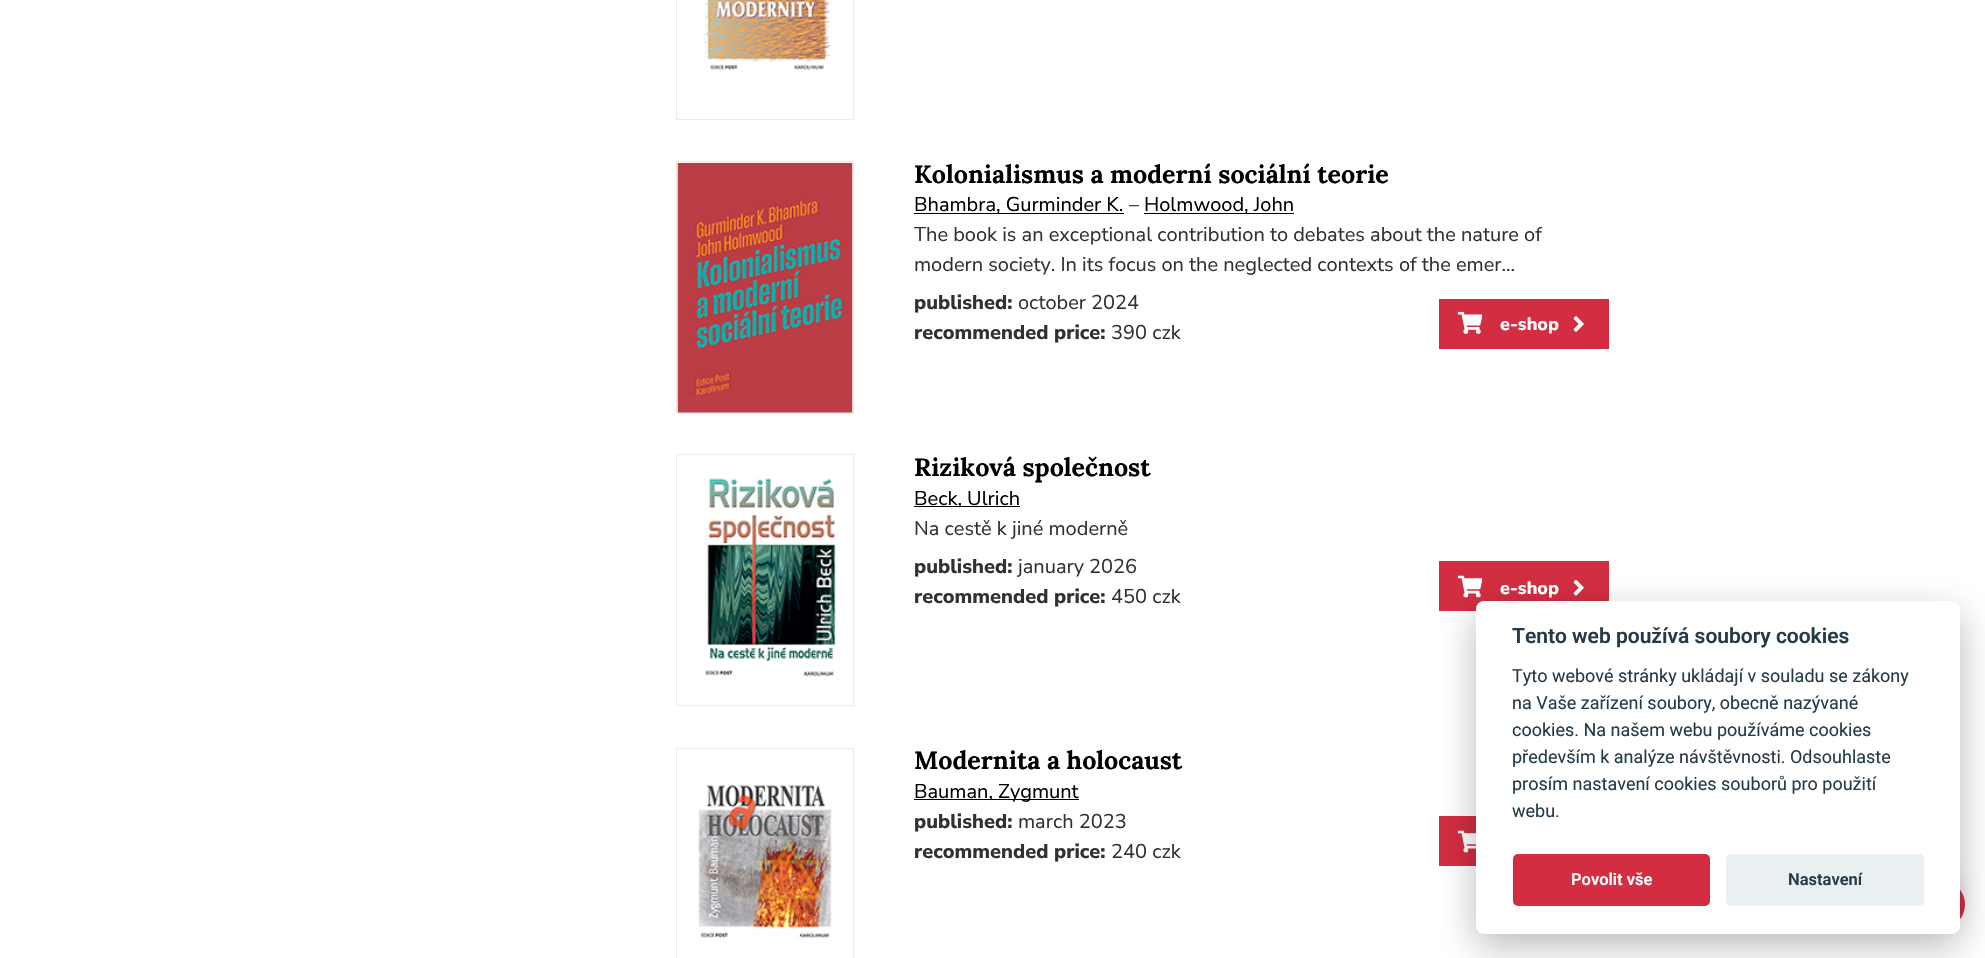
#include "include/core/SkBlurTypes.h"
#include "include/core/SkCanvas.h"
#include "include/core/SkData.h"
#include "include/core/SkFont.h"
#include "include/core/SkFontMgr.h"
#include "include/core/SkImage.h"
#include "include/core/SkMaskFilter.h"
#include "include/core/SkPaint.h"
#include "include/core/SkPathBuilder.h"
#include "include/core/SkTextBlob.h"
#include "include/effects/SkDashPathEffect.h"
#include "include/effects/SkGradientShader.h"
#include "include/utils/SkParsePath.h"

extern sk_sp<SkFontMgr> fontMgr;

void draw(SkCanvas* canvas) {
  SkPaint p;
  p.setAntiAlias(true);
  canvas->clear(SK_ColorWHITE);
  p.setStyle(SkPaint::kStroke_Style);
  p.setStrokeWidth(1);
  p.setColor(SkColorSetRGB(235, 235, 235));
  canvas->drawRect(SkRect::MakeLTRB(676.5f, -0.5f, 853.5f, 119.5f), p);
  canvas->drawImageRect(SkImages::DeferredFromEncodedData(SkData::MakeFromFileName("images/1.png")), SkRect::MakeLTRB(703, 0, 831, 70), SkSamplingOptions());
  canvas->drawRect(SkRect::MakeLTRB(676.5f, 161.5f, 853.5f, 413.5f), p);
  canvas->drawImageRect(SkImages::DeferredFromEncodedData(SkData::MakeFromFileName("images/2.png")), SkRect::MakeLTRB(677, 162, 853, 413), SkSamplingOptions());
  p.setStyle(SkPaint::kFill_Style);
  p.setColor(SK_ColorBLACK);
  canvas->drawRect(SkRect::MakeLTRB(914, 213, 1124, 214), p);
  canvas->drawRect(SkRect::MakeLTRB(1144, 213, 1294, 214), p);
  p.setColor(SkColorSetRGB(210, 45, 64));
  canvas->drawRect(SkRect::MakeLTRB(1439, 299, 1609, 349), p);
  canvas->drawImageRect(SkImages::DeferredFromEncodedData(SkData::MakeFromFileName("images/3.png")), SkRect::MakeLTRB(1457, 311, 1483, 334), SkSamplingOptions());
  canvas->drawImageRect(SkImages::DeferredFromEncodedData(SkData::MakeFromFileName("images/4.png")), SkRect::MakeLTRB(1573, 316, 1584, 332), SkSamplingOptions());
  p.setStyle(SkPaint::kStroke_Style);
  p.setColor(SkColorSetRGB(235, 235, 235));
  canvas->drawRect(SkRect::MakeLTRB(676.5f, 454.5f, 853.5f, 705.5f), p);
  canvas->drawImageRect(SkImages::DeferredFromEncodedData(SkData::MakeFromFileName("images/5.png")), SkRect::MakeLTRB(705, 478, 836, 677), SkSamplingOptions());
  p.setStyle(SkPaint::kFill_Style);
  p.setColor(SK_ColorBLACK);
  canvas->drawRect(SkRect::MakeLTRB(914, 506, 1020, 507), p);
  p.setColor(SkColorSetRGB(210, 45, 64));
  canvas->drawRect(SkRect::MakeLTRB(1439, 561, 1609, 611), p);
  canvas->drawImageRect(SkImages::DeferredFromEncodedData(SkData::MakeFromFileName("images/6.png")), SkRect::MakeLTRB(1457, 575, 1483, 598), SkSamplingOptions());
  canvas->drawImageRect(SkImages::DeferredFromEncodedData(SkData::MakeFromFileName("images/7.png")), SkRect::MakeLTRB(1573, 580, 1584, 596), SkSamplingOptions());
  p.setStyle(SkPaint::kStroke_Style);
  p.setColor(SkColorSetRGB(235, 235, 235));
  canvas->drawRect(SkRect::MakeLTRB(676.5f, 748.5f, 853.5f, 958.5f), p);
  canvas->drawImageRect(SkImages::DeferredFromEncodedData(SkData::MakeFromFileName("images/8.png")), SkRect::MakeLTRB(698, 785, 832, 939), SkSamplingOptions());
  p.setStyle(SkPaint::kFill_Style);
  p.setColor(SK_ColorBLACK);
  canvas->drawRect(SkRect::MakeLTRB(914, 799, 1079, 800), p);
  p.setColor(SkColorSetRGB(210, 45, 64));
  canvas->drawRect(SkRect::MakeLTRB(1439, 816, 1476, 866), p);
  canvas->drawImageRect(SkImages::DeferredFromEncodedData(SkData::MakeFromFileName("images/9.png")), SkRect::MakeLTRB(1457, 830, 1476, 853), SkSamplingOptions());
  p.setColor(SkColorSetARGB(51, 0, 0, 0));
  p.setMaskFilter(SkMaskFilter::MakeBlur(kNormal_SkBlurStyle, 9.5f));
  canvas->drawRoundRect(SkRect::MakeLTRB(1910, 868, 1959, 916), 24, 24, p);
  p.setMaskFilter(nullptr);
  p.setColor(SkColorSetRGB(210, 45, 64));
  canvas->drawCircle(1940.5f, 904.5f, 24.5f, p);
  p.setColor(SkColorSetARGB(71, 2, 2, 3));
  p.setMaskFilter(SkMaskFilter::MakeBlur(kNormal_SkBlurStyle, 19));
  canvas->drawRoundRect(SkRect::MakeLTRB(1476, 614, 1960, 946), 8, 8, p);
  p.setMaskFilter(nullptr);
  p.setColor(SK_ColorWHITE);
  canvas->drawRoundRect(SkRect::MakeLTRB(1476, 601, 1960, 934), 8, 8, p);
  p.setColor(SkColorSetRGB(210, 45, 64));
  canvas->drawRoundRect(SkRect::MakeLTRB(1513, 854, 1710, 906), 5, 5, p);
  p.setColor(SkColorSetRGB(234, 239, 242));
  canvas->drawRoundRect(SkRect::MakeLTRB(1726, 854, 1924, 906), 5, 5, p);
  SkFont font1(fontMgr->matchFamilyStyle("Lora", SkFontStyle::Bold()), 25);
  font1.setSubpixel(true);
  p.setColor(SK_ColorBLACK);
  canvas->drawString("Kolonialismus a moderní sociální teorie", 914, 183, font1, p);
  SkFont font2(fontMgr->matchFamilyStyle("Nunito Sans", SkFontStyle::Normal()), 20);
  font2.setSubpixel(true);
  canvas->drawString("Bhambra, Gurminder K.", 914, 211, font2, p);
  p.setColor(SkColorSetRGB(49, 49, 49));
  canvas->drawString("–", 1129, 211, font2, p);
  p.setColor(SK_ColorBLACK);
  canvas->drawString("Holmwood, John", 1144, 211, font2, p);
  p.setColor(SkColorSetRGB(49, 49, 49));
  canvas->drawString("The book is an exceptional contribution to debates about the nature of", 914, 241, font2, p);
  canvas->drawString("modern society. In its focus on the neglected contexts of the emer...", 914, 271, font2, p);
  SkFont font3(fontMgr->matchFamilyStyle("Nunito Sans", SkFontStyle(800, SkFontStyle::kNormal_Width, SkFontStyle::kUpright_Slant)), 20);
  font3.setSubpixel(true);
  canvas->drawString("published:", 914, 309, font3, p);
  canvas->drawString("october 2024", 1018, 309, font2, p);
  canvas->drawString("recommended price:", 914, 339, font3, p);
  canvas->drawString("390 czk", 1111, 339, font2, p);
  SkFont font4(fontMgr->matchFamilyStyle("Nunito Sans", SkFontStyle(800, SkFontStyle::kNormal_Width, SkFontStyle::kUpright_Slant)), 18);
  font4.setSubpixel(true);
  p.setColor(SK_ColorWHITE);
  canvas->drawString("e-shop", 1500, 330, font4, p);
  p.setColor(SK_ColorBLACK);
  canvas->drawString("Riziková společnost", 914, 476, font1, p);
  canvas->drawString("Beck, Ulrich", 914, 505, font2, p);
  p.setColor(SkColorSetRGB(49, 49, 49));
  canvas->drawString("Na cestě k jiné moderně", 914, 535, font2, p);
  canvas->drawString("published:", 914, 573, font3, p);
  canvas->drawString("january 2026", 1018, 573, font2, p);
  canvas->drawString("recommended price:", 914, 603, font3, p);
  canvas->drawString("450 czk", 1111, 603, font2, p);
  p.setColor(SK_ColorWHITE);
  canvas->drawString("e-shop", 1500, 594, font4, p);
  p.setColor(SK_ColorBLACK);
  canvas->drawString("Modernita a holocaust", 914, 769, font1, p);
  canvas->drawString("Bauman, Zygmunt", 914, 798, font2, p);
  p.setColor(SkColorSetRGB(49, 49, 49));
  canvas->drawString("published:", 914, 828, font3, p);
  canvas->drawString("march 2023", 1018, 828, font2, p);
  canvas->drawString("recommended price:", 914, 858, font3, p);
  canvas->drawString("240 czk", 1111, 858, font2, p);
  SkFont font5(fontMgr->matchFamilyStyle("Roboto", SkFontStyle(600, SkFontStyle::kNormal_Width, SkFontStyle::kUpright_Slant)), 21);
  font5.setSubpixel(true);
  p.setColor(SkColorSetRGB(37, 59, 72));
  canvas->drawString("Tento web používá soubory cookies", 1512, 643, font5, p);
  SkFont font6(fontMgr->matchFamilyStyle("Roboto", SkFontStyle::Normal()), 18);
  font6.setSubpixel(true);
  canvas->drawString("Tyto webové stránky ukládají v souladu se zákony", 1512, 682, font6, p);
  canvas->drawString("na Vaše zařízení soubory, obecně nazývané", 1512, 709, font6, p);
  canvas->drawString("cookies. Na našem webu používáme cookies", 1512, 736, font6, p);
  canvas->drawString("především k analýze návštěvnosti. Odsouhlaste", 1512, 763, font6, p);
  canvas->drawString("prosím nastavení cookies souborů pro použití", 1512, 790, font6, p);
  canvas->drawString("webu.", 1512, 817, font6, p);
  SkFont font7(fontMgr->matchFamilyStyle("Roboto", SkFontStyle(600, SkFontStyle::kNormal_Width, SkFontStyle::kUpright_Slant)), 16.5f);
  font7.setSubpixel(true);
  p.setColor(SK_ColorWHITE);
  canvas->drawString("Povolit vše", 1571, 885, font7, p);
  p.setColor(SkColorSetRGB(37, 59, 72));
  canvas->drawString("Nastavení", 1788, 885, font7, p);
}
